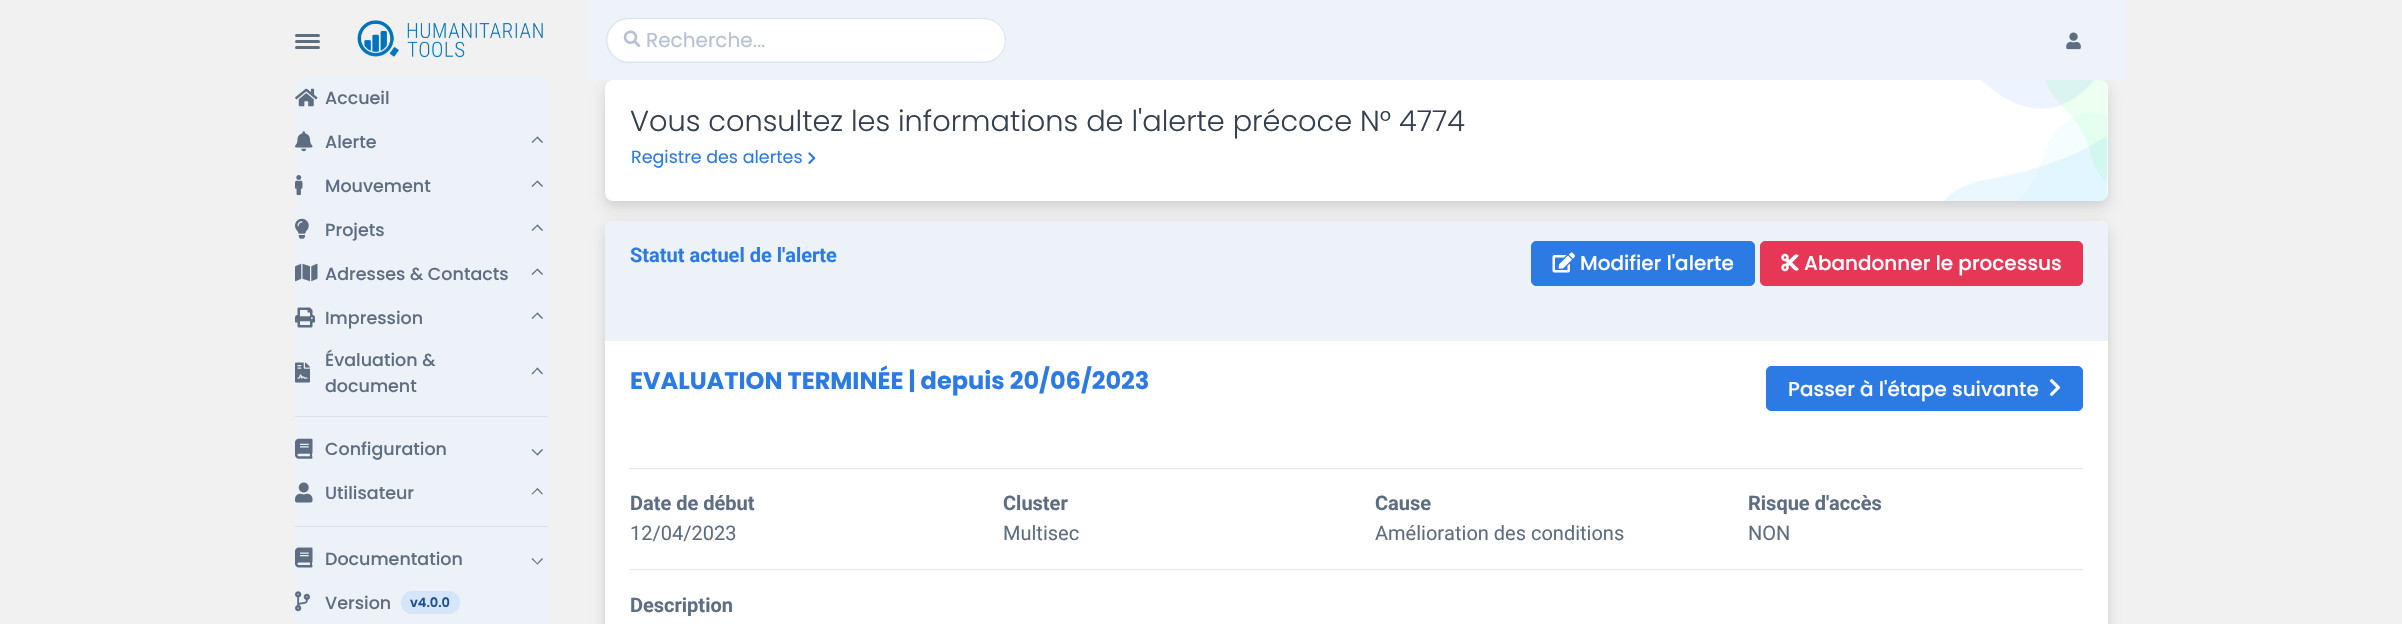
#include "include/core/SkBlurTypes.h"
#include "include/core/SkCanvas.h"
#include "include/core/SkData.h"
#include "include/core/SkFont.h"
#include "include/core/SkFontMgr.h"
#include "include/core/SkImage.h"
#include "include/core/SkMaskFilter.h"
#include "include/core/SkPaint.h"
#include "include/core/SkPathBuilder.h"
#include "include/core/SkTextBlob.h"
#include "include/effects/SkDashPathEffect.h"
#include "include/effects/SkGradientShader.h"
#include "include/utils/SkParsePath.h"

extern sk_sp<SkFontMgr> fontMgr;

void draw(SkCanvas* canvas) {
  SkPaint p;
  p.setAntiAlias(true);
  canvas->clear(SkColorSetRGB(241, 241, 241));
  p.setColor(SkColorSetRGB(94, 110, 130));
  canvas->drawRoundRect(SkRect::MakeLTRB(295, 34, 320, 37), 1.5f, 1.5f, p);
  canvas->drawRoundRect(SkRect::MakeLTRB(295, 40, 320, 43), 1.5f, 1.5f, p);
  canvas->drawRoundRect(SkRect::MakeLTRB(295, 46, 320, 49), 1.5f, 1.5f, p);
  canvas->drawImageRect(SkImages::DeferredFromEncodedData(SkData::MakeFromFileName("images/1.png")), SkRect::MakeLTRB(357, 20, 543, 58), SkSamplingOptions());
  p.setColor(SkColorSetRGB(237, 242, 249));
  canvas->drawRect(SkRect::MakeLTRB(295, 76, 548, 624), p);
  canvas->drawImageRect(SkImages::DeferredFromEncodedData(SkData::MakeFromFileName("images/2.png")), SkRect::MakeLTRB(295, 88, 318, 107), SkSamplingOptions());
  canvas->drawImageRect(SkImages::DeferredFromEncodedData(SkData::MakeFromFileName("images/3.png")), SkRect::MakeLTRB(295, 131, 313, 152), SkSamplingOptions());
  p.setColor(SkColorSetRGB(94, 110, 130));
  canvas->drawPath(SkPathBuilder().moveTo(532.5f, 143).lineTo(531.5f, 142).lineTo(537.5f, 136.5f).lineTo(538, 137.5f).close().detach(), p);
  canvas->drawPath(SkPathBuilder().moveTo(542, 143).lineTo(536.5f, 137.5f).lineTo(537.5f, 136.5f).lineTo(543, 142).close().detach(), p);
  canvas->drawImageRect(SkImages::DeferredFromEncodedData(SkData::MakeFromFileName("images/4.png")), SkRect::MakeLTRB(295, 175, 303, 195), SkSamplingOptions());
  canvas->drawPath(SkPathBuilder().moveTo(532.5f, 187).lineTo(531.5f, 186).lineTo(537.5f, 180.5f).lineTo(538, 181.5f).close().detach(), p);
  canvas->drawPath(SkPathBuilder().moveTo(542, 187).lineTo(536.5f, 181.5f).lineTo(537.5f, 180.5f).lineTo(543, 186).close().detach(), p);
  canvas->drawImageRect(SkImages::DeferredFromEncodedData(SkData::MakeFromFileName("images/5.png")), SkRect::MakeLTRB(295, 218, 309, 239), SkSamplingOptions());
  canvas->drawPath(SkPathBuilder().moveTo(532.5f, 231).lineTo(531.5f, 230).lineTo(537.5f, 224.5f).lineTo(538, 225.5f).close().detach(), p);
  canvas->drawPath(SkPathBuilder().moveTo(542, 231).lineTo(536.5f, 225.5f).lineTo(537.5f, 224.5f).lineTo(543, 230).close().detach(), p);
  canvas->drawImageRect(SkImages::DeferredFromEncodedData(SkData::MakeFromFileName("images/6.png")), SkRect::MakeLTRB(295, 263, 318, 282), SkSamplingOptions());
  canvas->drawPath(SkPathBuilder().moveTo(532.5f, 275).lineTo(531.5f, 274).lineTo(537.5f, 268.5f).lineTo(538, 269.5f).close().detach(), p);
  canvas->drawPath(SkPathBuilder().moveTo(542, 275).lineTo(536.5f, 269.5f).lineTo(537.5f, 268.5f).lineTo(543, 274).close().detach(), p);
  canvas->drawImageRect(SkImages::DeferredFromEncodedData(SkData::MakeFromFileName("images/7.png")), SkRect::MakeLTRB(295, 307, 315, 328), SkSamplingOptions());
  canvas->drawPath(SkPathBuilder().moveTo(532.5f, 319).lineTo(531.5f, 318).lineTo(537.5f, 312.5f).lineTo(538, 313.5f).close().detach(), p);
  canvas->drawPath(SkPathBuilder().moveTo(542, 319).lineTo(536.5f, 313.5f).lineTo(537.5f, 312.5f).lineTo(543, 318).close().detach(), p);
  canvas->drawImageRect(SkImages::DeferredFromEncodedData(SkData::MakeFromFileName("images/8.png")), SkRect::MakeLTRB(295, 362, 310, 383), SkSamplingOptions());
  canvas->drawPath(SkPathBuilder().moveTo(532.5f, 374.5f).lineTo(531.5f, 373.5f).lineTo(537.5f, 367.5f).lineTo(538, 368.5f).close().detach(), p);
  canvas->drawPath(SkPathBuilder().moveTo(542, 374.5f).lineTo(536.5f, 368.5f).lineTo(537.5f, 367.5f).lineTo(543, 373.5f).close().detach(), p);
  p.setColor(SkColorSetRGB(216, 226, 239));
  canvas->drawRect(SkRect::MakeLTRB(295, 416, 548, 417), p);
  canvas->drawImageRect(SkImages::DeferredFromEncodedData(SkData::MakeFromFileName("images/9.png")), SkRect::MakeLTRB(295, 438, 313, 459), SkSamplingOptions());
  p.setColor(SkColorSetRGB(94, 110, 130));
  canvas->drawPath(SkPathBuilder().moveTo(542, 449).lineTo(543, 450).lineTo(537.5f, 455.5f).lineTo(536.5f, 454.5f).close().detach(), p);
  canvas->drawPath(SkPathBuilder().moveTo(532.5f, 449).lineTo(538, 454.5f).lineTo(537.5f, 455.5f).lineTo(531.5f, 450).close().detach(), p);
  canvas->drawImageRect(SkImages::DeferredFromEncodedData(SkData::MakeFromFileName("images/10.png")), SkRect::MakeLTRB(295, 482, 313, 503), SkSamplingOptions());
  canvas->drawPath(SkPathBuilder().moveTo(532.5f, 494.5f).lineTo(531.5f, 494).lineTo(537.5f, 488).lineTo(538, 489).close().detach(), p);
  canvas->drawPath(SkPathBuilder().moveTo(542, 494.5f).lineTo(536.5f, 489).lineTo(537.5f, 488).lineTo(543, 494).close().detach(), p);
  p.setColor(SkColorSetRGB(216, 226, 239));
  canvas->drawRect(SkRect::MakeLTRB(295, 526, 548, 527), p);
  canvas->drawImageRect(SkImages::DeferredFromEncodedData(SkData::MakeFromFileName("images/11.png")), SkRect::MakeLTRB(295, 547, 313, 568), SkSamplingOptions());
  p.setColor(SkColorSetRGB(94, 110, 130));
  canvas->drawPath(SkPathBuilder().moveTo(542, 558).lineTo(543, 559).lineTo(537.5f, 564.5f).lineTo(536.5f, 564).close().detach(), p);
  canvas->drawPath(SkPathBuilder().moveTo(532.5f, 558).lineTo(538, 564).lineTo(537.5f, 564.5f).lineTo(531.5f, 559).close().detach(), p);
  canvas->drawImageRect(SkImages::DeferredFromEncodedData(SkData::MakeFromFileName("images/12.png")), SkRect::MakeLTRB(295, 591, 310, 612), SkSamplingOptions());
  p.setColor(SkColorSetRGB(213, 229, 250));
  canvas->drawRoundRect(SkRect::MakeLTRB(401, 591, 460, 614), 11.5f, 11.5f, p);
  p.setColor(SkColorSetARGB(18, 0, 0, 0));
  p.setMaskFilter(SkMaskFilter::MakeBlur(kNormal_SkBlurStyle, 4));
  canvas->drawRoundRect(SkRect::MakeLTRB(605, 84, 2108, 205), 8, 8, p);
  p.setMaskFilter(nullptr);
  p.setColor(SkColorSetARGB(26, 65, 69, 88));
  p.setMaskFilter(SkMaskFilter::MakeBlur(kNormal_SkBlurStyle, 9));
  canvas->drawRoundRect(SkRect::MakeLTRB(605, 89, 2108, 210), 8, 8, p);
  p.setMaskFilter(nullptr);
  p.setColor(SkColorSetARGB(245, 237, 242, 249));
  canvas->drawRect(SkRect::MakeLTRB(586, 0, 2126, 80), p);
  p.setColor(SK_ColorWHITE);
  canvas->drawRoundRect(SkRect::MakeLTRB(608, 19, 1005, 61), 21, 21, p);
  p.setStyle(SkPaint::kStroke_Style);
  p.setStrokeWidth(1);
  p.setColor(SkColorSetRGB(216, 226, 239));
  canvas->drawRoundRect(SkRect::MakeLTRB(606.5f, 18.5f, 1005.5f, 62.5f), 22, 22, p);
  canvas->drawImageRect(SkImages::DeferredFromEncodedData(SkData::MakeFromFileName("images/13.png")), SkRect::MakeLTRB(623, 30, 641, 48), SkSamplingOptions());
  canvas->drawImageRect(SkImages::DeferredFromEncodedData(SkData::MakeFromFileName("images/14.png")), SkRect::MakeLTRB(2066, 32, 2081, 50), SkSamplingOptions());
  p.setStyle(SkPaint::kFill_Style);
  p.setColor(SK_ColorWHITE);
  canvas->drawRoundRect(SkRect::MakeLTRB(605, 80, 2108, 201), 8, 8, p);
  canvas->drawImageRect(SkImages::DeferredFromEncodedData(SkData::MakeFromFileName("images/15.png")), SkRect::MakeLTRB(808, 152, 816, 165), SkSamplingOptions());
  canvas->drawImageRect(SkImages::DeferredFromEncodedData(SkData::MakeFromFileName("images/16.png")), SkRect::MakeLTRB(1944, 80, 2108, 201), SkSamplingOptions());
  p.setColor(SkColorSetARGB(18, 0, 0, 0));
  p.setMaskFilter(SkMaskFilter::MakeBlur(kNormal_SkBlurStyle, 4));
  canvas->drawRoundRect(SkRect::MakeLTRB(605, 225, 2108, 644), 8, 8, p);
  p.setMaskFilter(nullptr);
  p.setColor(SkColorSetARGB(26, 65, 69, 88));
  p.setMaskFilter(SkMaskFilter::MakeBlur(kNormal_SkBlurStyle, 9));
  canvas->drawRoundRect(SkRect::MakeLTRB(605, 230, 2108, 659), 8, 8, p);
  p.setMaskFilter(nullptr);
  p.setColor(SK_ColorWHITE);
  canvas->drawRoundRect(SkRect::MakeLTRB(605, 221, 2108, 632), 8, 8, p);
  p.setColor(SkColorSetRGB(237, 242, 249));
  canvas->drawPath(SkPathBuilder().moveTo(613, 221).lineTo(2100, 221).cubicTo(2104.5f, 221, 2108, 224.5f, 2108, 229).lineTo(2108, 341).lineTo(605, 341).lineTo(605, 229).cubicTo(605, 224.5f, 608.5f, 221, 613, 221).close().detach(), p);
  p.setColor(SkColorSetRGB(44, 123, 229));
  canvas->drawRoundRect(SkRect::MakeLTRB(1531.5f, 241.5f, 1754.5f, 285.5f), 4.5f, 4.5f, p);
  p.setStyle(SkPaint::kStroke_Style);
  canvas->drawRoundRect(SkRect::MakeLTRB(1531.5f, 241.5f, 1754.5f, 285.5f), 4.5f, 4.5f, p);
  canvas->drawImageRect(SkImages::DeferredFromEncodedData(SkData::MakeFromFileName("images/17.png")), SkRect::MakeLTRB(1552, 252, 1575, 273), SkSamplingOptions());
  p.setStyle(SkPaint::kFill_Style);
  p.setColor(SkColorSetRGB(230, 55, 87));
  canvas->drawRoundRect(SkRect::MakeLTRB(1760.5f, 241.5f, 2082.5f, 285.5f), 4.5f, 4.5f, p);
  p.setStyle(SkPaint::kStroke_Style);
  canvas->drawRoundRect(SkRect::MakeLTRB(1760.5f, 241.5f, 2082.5f, 285.5f), 4.5f, 4.5f, p);
  canvas->drawImageRect(SkImages::DeferredFromEncodedData(SkData::MakeFromFileName("images/18.png")), SkRect::MakeLTRB(1781, 253, 1799, 272), SkSamplingOptions());
  p.setStyle(SkPaint::kFill_Style);
  p.setColor(SkColorSetRGB(44, 123, 229));
  canvas->drawRoundRect(SkRect::MakeLTRB(1766.5f, 366.5f, 2082.5f, 410.5f), 4.5f, 4.5f, p);
  p.setStyle(SkPaint::kStroke_Style);
  canvas->drawRoundRect(SkRect::MakeLTRB(1766.5f, 366.5f, 2082.5f, 410.5f), 4.5f, 4.5f, p);
  canvas->drawImageRect(SkImages::DeferredFromEncodedData(SkData::MakeFromFileName("images/19.png")), SkRect::MakeLTRB(2049, 379, 2061, 396), SkSamplingOptions());
  p.setStyle(SkPaint::kFill_Style);
  p.setColor(SkColorSetRGB(230, 230, 230));
  canvas->drawRect(SkRect::MakeLTRB(630, 468, 2083, 469), p);
  canvas->drawRect(SkRect::MakeLTRB(630, 569, 2083, 570), p);
  SkFont font1(fontMgr->matchFamilyStyle("Poppins", SkFontStyle(500, SkFontStyle::kNormal_Width, SkFontStyle::kUpright_Slant)), 17.5f);
  font1.setSubpixel(true);
  p.setColor(SkColorSetRGB(94, 110, 130));
  canvas->drawString("Accueil", 325, 104, font1, p);
  canvas->drawString("Alerte", 325, 148, font1, p);
  canvas->drawString("Mouvement", 325, 192, font1, p);
  canvas->drawString("Projets", 325, 236, font1, p);
  canvas->drawString("Adresses & Contacts", 325, 280, font1, p);
  canvas->drawString("Impression", 325, 324, font1, p);
  canvas->drawString("Évaluation &", 325, 366, font1, p);
  canvas->drawString("document", 325, 392, font1, p);
  canvas->drawString("Configuration", 325, 455, font1, p);
  canvas->drawString("Utilisateur", 325, 499, font1, p);
  canvas->drawString("Documentation", 325, 565, font1, p);
  canvas->drawString("Version", 325, 609, font1, p);
  SkFont font2(fontMgr->matchFamilyStyle("Poppins", SkFontStyle(600, SkFontStyle::kNormal_Width, SkFontStyle::kUpright_Slant)), 13);
  font2.setSubpixel(true);
  p.setColor(SkColorSetRGB(28, 79, 147));
  canvas->drawString("v4.0.0", 410, 607, font2, p);
  SkFont font3(fontMgr->matchFamilyStyle("Poppins", SkFontStyle::Normal()), 20);
  font3.setSubpixel(true);
  p.setColor(SkColorSetRGB(182, 193, 210));
  canvas->drawString("Recherche...", 646, 47, font3, p);
  SkFont font4(fontMgr->matchFamilyStyle("Poppins", SkFontStyle(300, SkFontStyle::kNormal_Width, SkFontStyle::kUpright_Slant)), 28.8f);
  font4.setSubpixel(true);
  p.setColor(SkColorSetRGB(52, 64, 80));
  canvas->drawString("Vous consultez les informations de l'alerte précoce N° 4774", 630, 131, font4, p);
  SkFont font5(fontMgr->matchFamilyStyle("Poppins", SkFontStyle::Normal()), 17.5f);
  font5.setSubpixel(true);
  p.setColor(SkColorSetRGB(44, 123, 229));
  canvas->drawString("Registre des alertes", 631, 163, font5, p);
  SkFont font6(fontMgr->matchFamilyStyle("Roboto", SkFontStyle::Bold()), 20);
  font6.setSubpixel(true);
  canvas->drawString("Statut actuel de l'alerte", 630, 262, font6, p);
  SkFont font7(fontMgr->matchFamilyStyle("Poppins", SkFontStyle(500, SkFontStyle::kNormal_Width, SkFontStyle::kUpright_Slant)), 20);
  font7.setSubpixel(true);
  p.setColor(SK_ColorWHITE);
  canvas->drawString("Modifier l'alerte", 1580, 270, font7, p);
  canvas->drawString("Abandonner le processus", 1804, 270, font7, p);
  SkFont font8(fontMgr->matchFamilyStyle("Poppins", SkFontStyle::Bold()), 24);
  font8.setSubpixel(true);
  p.setColor(SkColorSetRGB(44, 123, 229));
  canvas->drawString("EVALUATION TERMINÉE | depuis 20/06/2023", 630, 389, font8, p);
  p.setColor(SK_ColorWHITE);
  canvas->drawString("Passer à l'étape suivante", 1788, 396, font7, p);
  p.setColor(SkColorSetRGB(94, 110, 130));
  canvas->drawString("Date de début", 630, 510, font6, p);
  SkFont font9(fontMgr->matchFamilyStyle("Roboto", SkFontStyle::Normal()), 20);
  font9.setSubpixel(true);
  canvas->drawString("12/04/2023", 630, 540, font9, p);
  canvas->drawString("Cluster", 1003, 510, font6, p);
  canvas->drawString("Multisec", 1003, 540, font9, p);
  canvas->drawString("Cause", 1375, 510, font6, p);
  canvas->drawString("Amélioration des conditions", 1375, 540, font9, p);
  canvas->drawString("Risque d'accès", 1748, 510, font6, p);
  canvas->drawString("NON", 1748, 540, font9, p);
  canvas->drawString("Description", 630, 612, font6, p);
}
